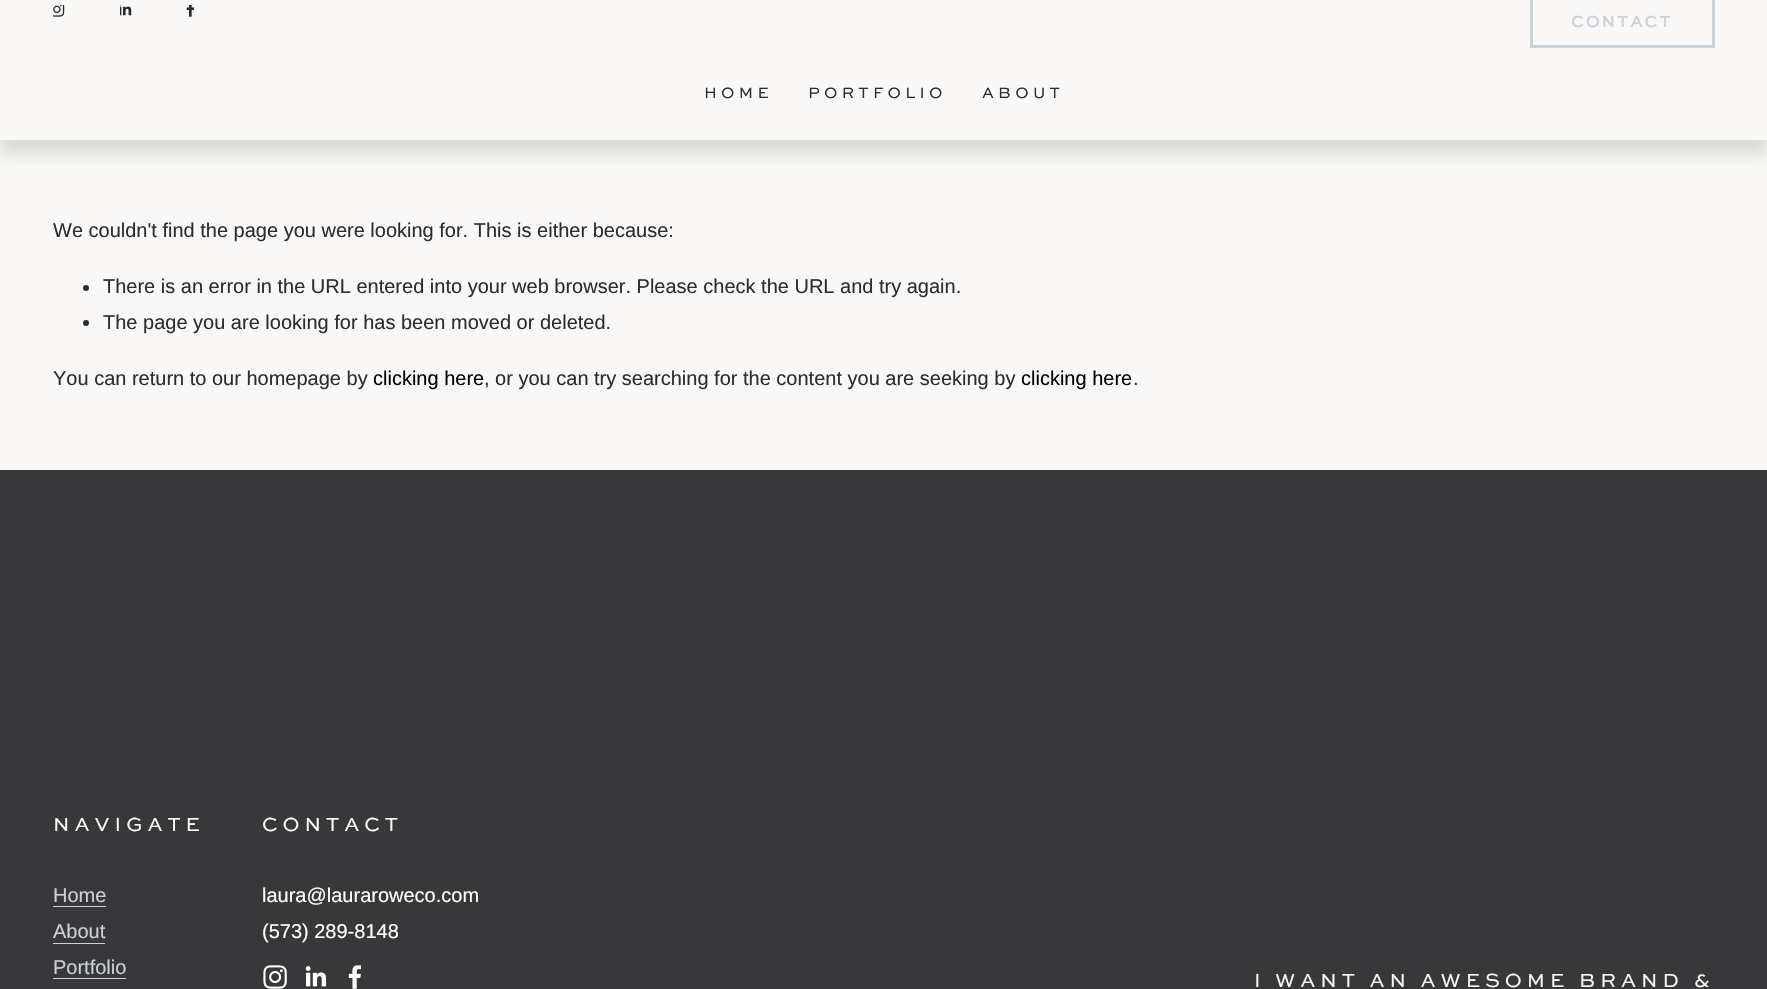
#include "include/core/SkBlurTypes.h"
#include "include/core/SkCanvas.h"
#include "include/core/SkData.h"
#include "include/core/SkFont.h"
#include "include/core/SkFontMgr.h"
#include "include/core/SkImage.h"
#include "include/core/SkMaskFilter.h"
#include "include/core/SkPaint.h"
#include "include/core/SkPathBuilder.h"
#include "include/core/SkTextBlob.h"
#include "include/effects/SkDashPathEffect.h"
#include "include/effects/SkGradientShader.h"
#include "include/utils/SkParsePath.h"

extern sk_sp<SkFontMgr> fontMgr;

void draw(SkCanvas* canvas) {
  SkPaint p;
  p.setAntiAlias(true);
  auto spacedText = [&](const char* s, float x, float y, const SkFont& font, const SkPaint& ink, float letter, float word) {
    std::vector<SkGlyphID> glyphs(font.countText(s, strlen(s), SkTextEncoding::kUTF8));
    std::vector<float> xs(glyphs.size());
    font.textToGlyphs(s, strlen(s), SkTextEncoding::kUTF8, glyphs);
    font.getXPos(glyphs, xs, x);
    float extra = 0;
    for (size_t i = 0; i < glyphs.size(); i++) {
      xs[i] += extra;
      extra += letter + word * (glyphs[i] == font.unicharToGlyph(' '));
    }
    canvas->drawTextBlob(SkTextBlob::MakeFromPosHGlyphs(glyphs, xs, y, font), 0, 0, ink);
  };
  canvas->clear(SkColorSetRGB(249, 248, 246));
  canvas->save();
  canvas->clipRect(SkRect::MakeLTRB(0, 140, 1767, 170));
  p.setColor(SkColorSetRGB(218, 218, 216));
  p.setMaskFilter(SkMaskFilter::MakeBlur(kNormal_SkBlurStyle, 7.5f));
  canvas->drawRect(SkRect::MakeLTRB(0, -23, 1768, 155), p);
  p.setMaskFilter(nullptr);
  canvas->restore();
  canvas->drawImageRect(SkImages::DeferredFromEncodedData(SkData::MakeFromFileName("images/1.png")), SkRect::MakeLTRB(53, 5, 65, 17), SkSamplingOptions());
  canvas->drawImageRect(SkImages::DeferredFromEncodedData(SkData::MakeFromFileName("images/2.png")), SkRect::MakeLTRB(120, 5, 132, 16), SkSamplingOptions());
  canvas->drawImageRect(SkImages::DeferredFromEncodedData(SkData::MakeFromFileName("images/3.png")), SkRect::MakeLTRB(186, 5, 195, 17), SkSamplingOptions());
  p.setStyle(SkPaint::kStroke_Style);
  p.setStrokeWidth(3);
  p.setColor(SkColorSetRGB(199, 210, 217));
  canvas->drawRect(SkRect::MakeLTRB(1531.5f, -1.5f, 1713.5f, 46.5f), p);
  p.setStyle(SkPaint::kFill_Style);
  p.setColor(SkColorSetRGB(43, 45, 49));
  canvas->drawCircle(86, 288, 3, p);
  canvas->drawCircle(86, 323, 3, p);
  p.setColor(SkColorSetRGB(56, 56, 59));
  canvas->drawRect(SkRect::MakeLTRB(0, 470, 1767, 989), p);
  p.setColor(SkColorSetRGB(199, 210, 217));
  canvas->drawRect(SkRect::MakeLTRB(53, 906, 106, 907), p);
  canvas->drawRect(SkRect::MakeLTRB(53, 943, 105, 944), p);
  canvas->drawRect(SkRect::MakeLTRB(53, 978, 126, 979), p);
  canvas->drawImageRect(SkImages::DeferredFromEncodedData(SkData::MakeFromFileName("images/4.png")), SkRect::MakeLTRB(263, 965, 287, 989), SkSamplingOptions());
  canvas->drawImageRect(SkImages::DeferredFromEncodedData(SkData::MakeFromFileName("images/5.png")), SkRect::MakeLTRB(305, 966, 327, 987), SkSamplingOptions());
  canvas->drawImageRect(SkImages::DeferredFromEncodedData(SkData::MakeFromFileName("images/6.png")), SkRect::MakeLTRB(348, 965, 361, 989), SkSamplingOptions());
  SkFont font1(fontMgr->matchFamilyStyle("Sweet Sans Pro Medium", SkFontStyle(500, SkFontStyle::kNormal_Width, SkFontStyle::kUpright_Slant)), 16.75f);
  font1.setSubpixel(true);
  spacedText("CONTACT", 1571, 27, font1, p, 1.75f, 0);
  SkFont font2(fontMgr->matchFamilyStyle("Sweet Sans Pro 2", SkFontStyle::Normal()), 15.75f);
  font2.setSubpixel(true);
  p.setColor(SkColorSetRGB(43, 45, 49));
  spacedText("HOME", 704, 98, font2, p, 4.25f, 0);
  spacedText("PORTFOLIO", 808, 98, font2, p, 4.25f, 0);
  spacedText("ABOUT", 982, 98, font2, p, 4.25f, 0);
  SkFont font3(fontMgr->matchFamilyStyle("Liberation Sans", SkFontStyle::Normal()), 20);
  font3.setSubpixel(true);
  canvas->drawString("We couldn't find the page you were looking for. This is either because:", 53, 237, font3, p);
  canvas->drawString("There is an error in the URL entered into your web browser. Please check the URL and try again.", 103, 293, font3, p);
  canvas->drawString("The page you are looking for has been moved or deleted.", 103, 329, font3, p);
  canvas->drawString("You can return to our homepage by", 53, 385, font3, p);
  p.setColor(SK_ColorBLACK);
  canvas->drawString("clicking here", 373, 385, font3, p);
  p.setColor(SkColorSetRGB(43, 45, 49));
  canvas->drawString(", or you can try searching for the content you are seeking by", 484, 385, font3, p);
  p.setColor(SK_ColorBLACK);
  canvas->drawString("clicking here", 1021, 385, font3, p);
  p.setColor(SkColorSetRGB(43, 45, 49));
  canvas->drawString(".", 1133, 385, font3, p);
  SkFont font4(fontMgr->matchFamilyStyle("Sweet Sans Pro", SkFontStyle::Normal()), 20);
  font4.setSubpixel(true);
  p.setColor(SK_ColorWHITE);
  spacedText("NAVIGATE", 53, 831, font4, p, 5, 0);
  p.setColor(SkColorSetRGB(199, 210, 217));
  canvas->drawString("Home", 53, 902, font3, p);
  canvas->drawString("About", 53, 938, font3, p);
  canvas->drawString("Portfolio", 53, 974, font3, p);
  p.setColor(SK_ColorWHITE);
  spacedText("CONTACT", 262, 831, font4, p, 5, 0);
  canvas->drawString("laura@lauraroweco.com", 262, 902, font3, p);
  canvas->drawString("(573) 289-8148", 262, 938, font3, p);
  p.setColor(SkColorSetRGB(249, 248, 246));
  spacedText("I WANT AN AWESOME BRAND &", 1254, 987, font4, p, 5, 0);
}
